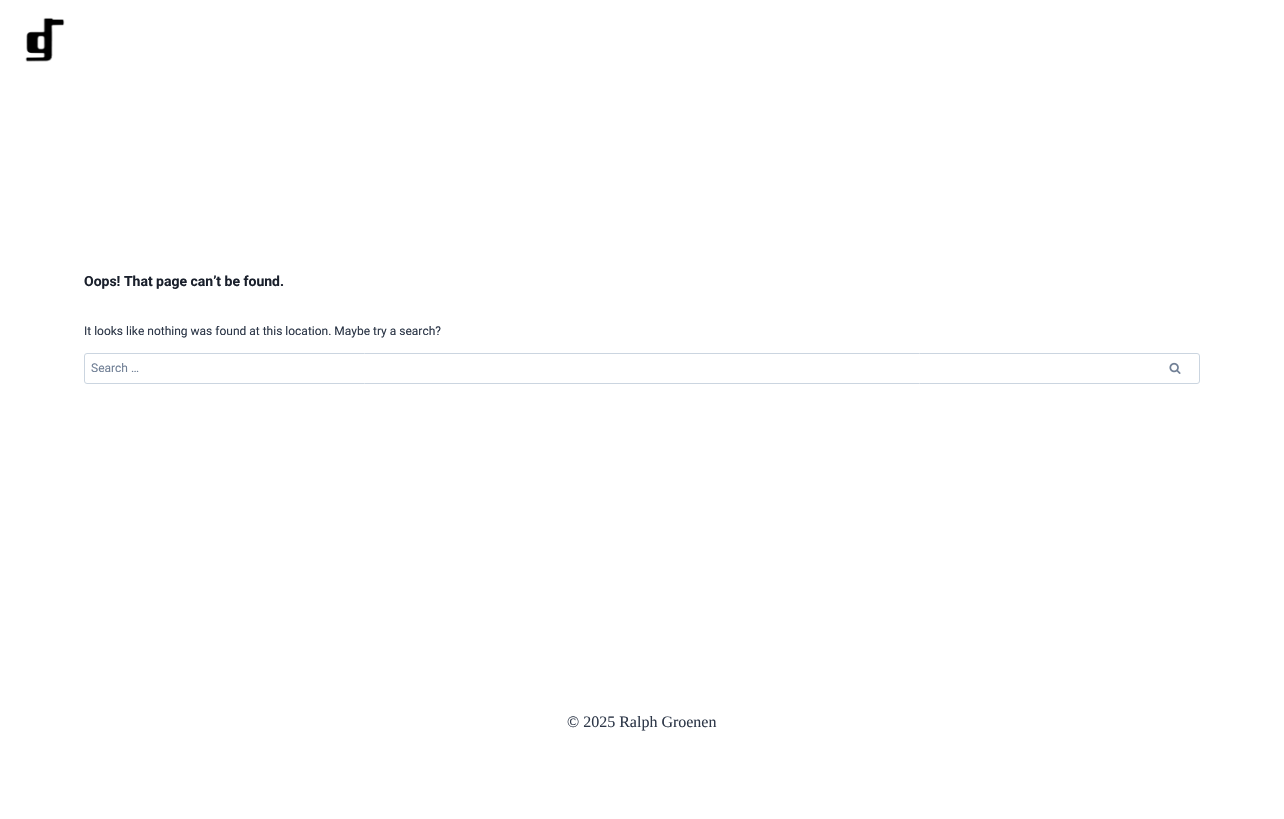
#include "include/core/SkBlurTypes.h"
#include "include/core/SkCanvas.h"
#include "include/core/SkData.h"
#include "include/core/SkFont.h"
#include "include/core/SkFontMgr.h"
#include "include/core/SkImage.h"
#include "include/core/SkMaskFilter.h"
#include "include/core/SkPaint.h"
#include "include/core/SkPathBuilder.h"
#include "include/core/SkTextBlob.h"
#include "include/effects/SkDashPathEffect.h"
#include "include/effects/SkGradientShader.h"
#include "include/utils/SkParsePath.h"

extern sk_sp<SkFontMgr> fontMgr;

void draw(SkCanvas* canvas) {
  SkPaint p;
  p.setAntiAlias(true);
  canvas->clear(SK_ColorWHITE);
  canvas->drawImageRect(SkImages::DeferredFromEncodedData(SkData::MakeFromFileName("images/1.png")), SkRect::MakeLTRB(25, 17, 65, 62), SkSamplingOptions());
  p.setStyle(SkPaint::kStroke_Style);
  p.setStrokeWidth(1);
  p.setColor(SkColorSetRGB(203, 213, 224));
  canvas->drawRoundRect(SkRect::MakeLTRB(84.5f, 353.5f, 1199.5f, 383.5f), 2.5f, 2.5f, p);
  canvas->drawImageRect(SkImages::DeferredFromEncodedData(SkData::MakeFromFileName("images/2.png")), SkRect::MakeLTRB(1169, 362, 1181, 374), SkSamplingOptions());
  SkFont font1(fontMgr->matchFamilyStyle("Roboto", SkFontStyle::Bold()), 14);
  font1.setSubpixel(true);
  p.setStyle(SkPaint::kFill_Style);
  p.setColor(SkColorSetRGB(26, 32, 44));
  canvas->drawString("Oops! That page can’t be found.", 84, 286, font1, p);
  SkFont font2(fontMgr->matchFamilyStyle("Roboto", SkFontStyle::Normal()), 12);
  font2.setSubpixel(true);
  p.setColor(SkColorSetRGB(45, 55, 72));
  canvas->drawString("It looks like nothing was found at this location. Maybe try a search?", 84, 335, font2, p);
  p.setColor(SkColorSetRGB(113, 128, 150));
  canvas->drawString("Search …", 91, 372, font2, p);
  SkFont font3(fontMgr->matchFamilyStyle("Liberation Serif", SkFontStyle::Normal()), 16);
  font3.setSubpixel(true);
  p.setColor(SkColorSetRGB(45, 55, 72));
  canvas->drawString("© 2025 Ralph Groenen", 567, 727, font3, p);
}
